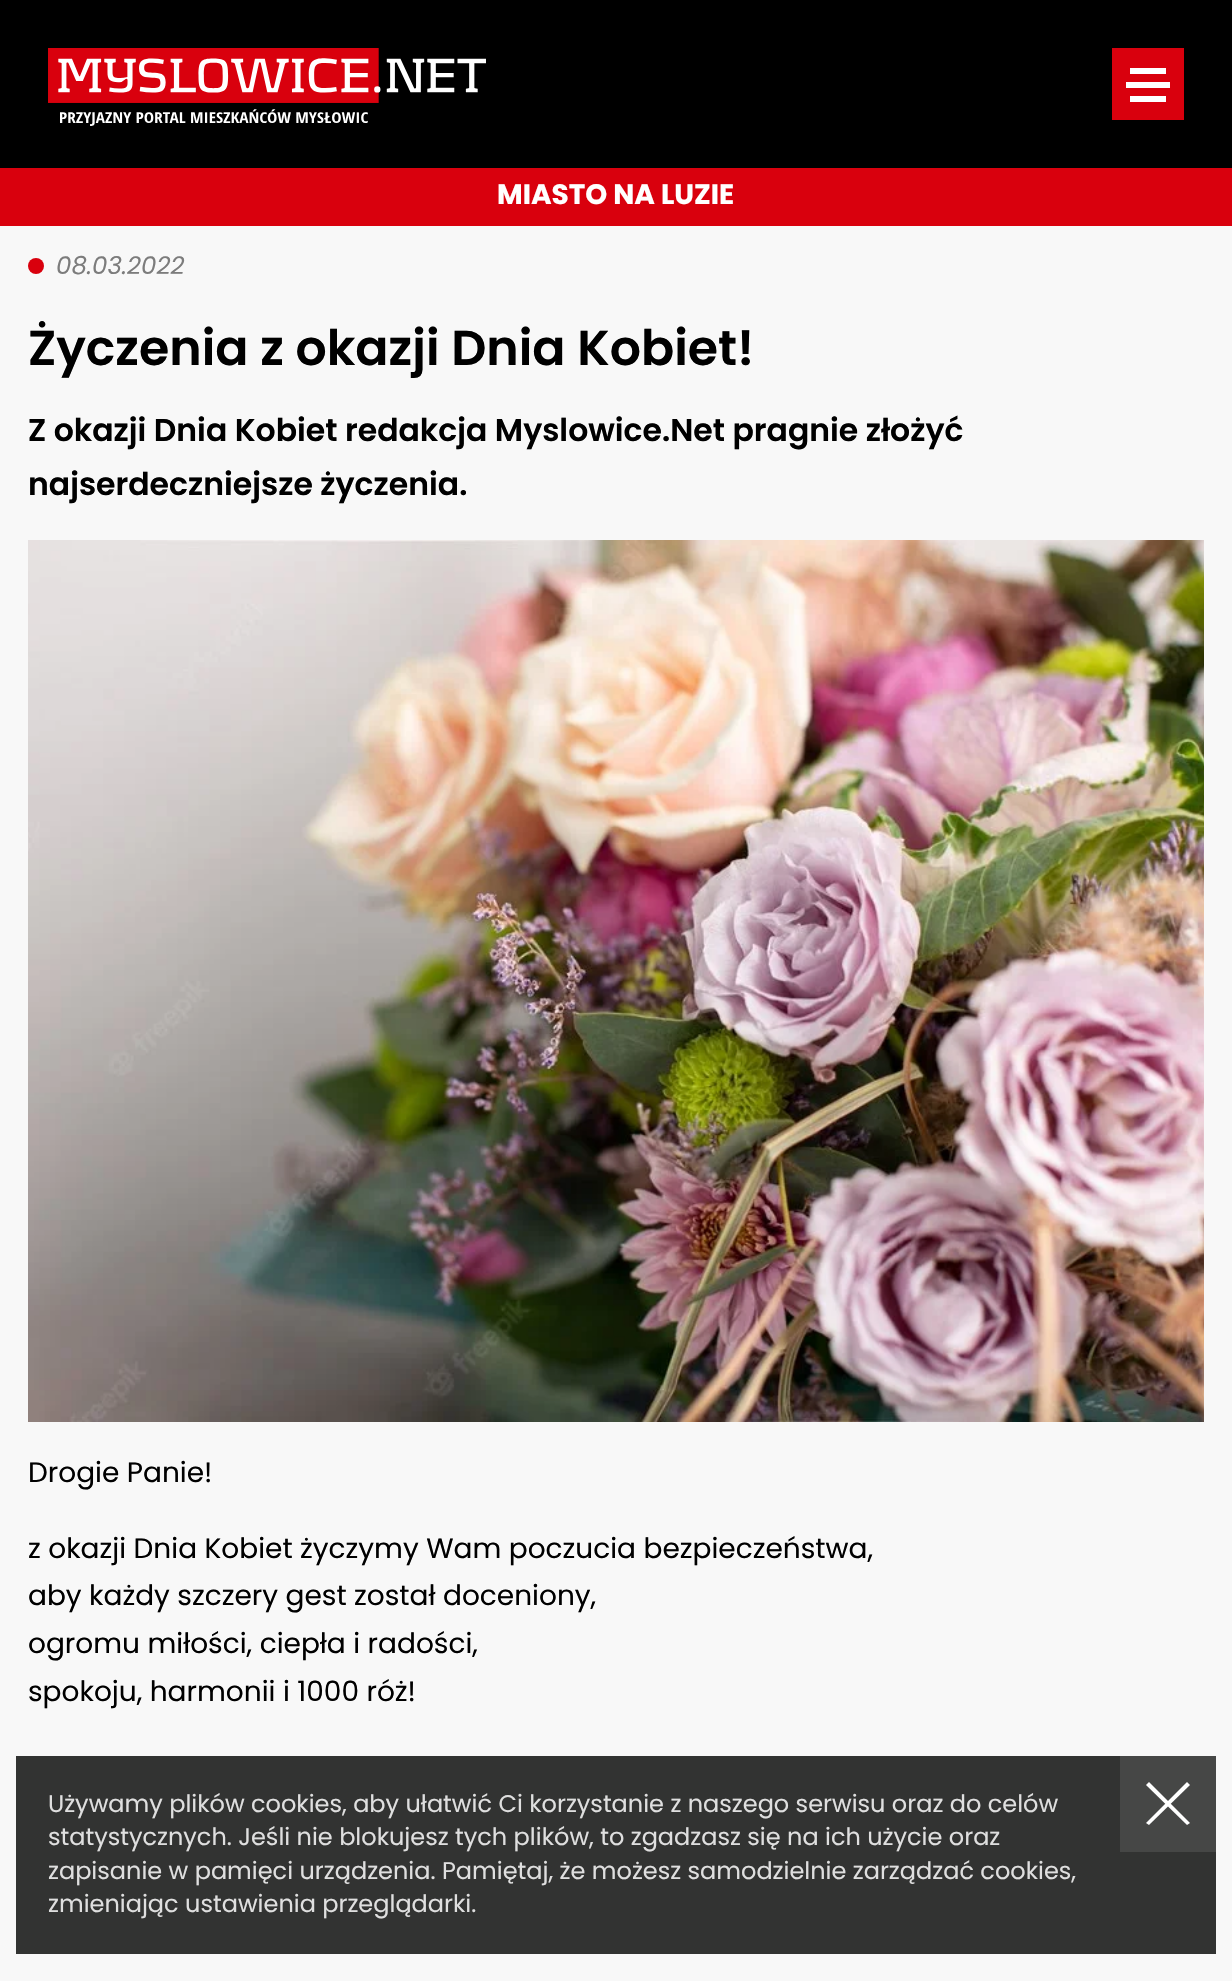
#include "include/core/SkBlurTypes.h"
#include "include/core/SkCanvas.h"
#include "include/core/SkData.h"
#include "include/core/SkFont.h"
#include "include/core/SkFontMgr.h"
#include "include/core/SkImage.h"
#include "include/core/SkMaskFilter.h"
#include "include/core/SkPaint.h"
#include "include/core/SkPathBuilder.h"
#include "include/core/SkTextBlob.h"
#include "include/effects/SkDashPathEffect.h"
#include "include/effects/SkGradientShader.h"
#include "include/utils/SkParsePath.h"

extern sk_sp<SkFontMgr> fontMgr;

void draw(SkCanvas* canvas) {
  SkPaint p;
  p.setAntiAlias(true);
  canvas->clear(SkColorSetRGB(248, 248, 248));
  p.setColor(SK_ColorBLACK);
  canvas->drawRect(SkRect::MakeLTRB(0, 0, 1232, 168), p);
  canvas->drawImageRect(SkImages::DeferredFromEncodedData(SkData::MakeFromFileName("images/1.png")), SkRect::MakeLTRB(48, 48, 486, 126), SkSamplingOptions());
  p.setColor(SkColorSetRGB(217, 0, 13));
  canvas->drawRect(SkRect::MakeLTRB(1112, 48, 1184, 120), p);
  p.setColor(SK_ColorWHITE);
  canvas->drawRect(SkRect::MakeLTRB(1130, 96, 1166, 102), p);
  canvas->drawRect(SkRect::MakeLTRB(1130, 68, 1166, 74), p);
  canvas->drawRect(SkRect::MakeLTRB(1126, 82, 1170, 88), p);
  p.setColor(SkColorSetRGB(217, 0, 13));
  canvas->drawRect(SkRect::MakeLTRB(0, 168, 1232, 226), p);
  canvas->drawCircle(36, 266, 8, p);
  canvas->drawImageRect(SkImages::DeferredFromEncodedData(SkData::MakeFromFileName("images/2.png")), SkRect::MakeLTRB(28, 540, 1204, 1422), SkSamplingOptions());
  p.setColor(SkColorSetRGB(50, 51, 50));
  canvas->drawRect(SkRect::MakeLTRB(16, 1756, 1216, 1954), p);
  p.setColor(SkColorSetRGB(70, 71, 70));
  canvas->drawRect(SkRect::MakeLTRB(1120, 1756, 1216, 1852), p);
  p.setColor(SK_ColorWHITE);
  canvas->drawPath(SkPathBuilder().moveTo(1146, 1823).lineTo(1187, 1782).lineTo(1190, 1785).lineTo(1149, 1825).close().detach(), p);
  canvas->drawPath(SkPathBuilder().moveTo(1149, 1782).lineTo(1190, 1823).lineTo(1187, 1825).lineTo(1146, 1785).close().detach(), p);
  SkFont font1(fontMgr->matchFamilyStyle("Poppins", SkFontStyle::Bold()), 28);
  font1.setSubpixel(true);
  canvas->drawString("MIASTO NA LUZIE", 497, 204, font1, p);
  SkFont font2(fontMgr->matchFamilyStyle("Poppins", SkFontStyle::Italic()), 24.5f);
  font2.setSubpixel(true);
  p.setColor(SkColorSetRGB(124, 124, 124));
  canvas->drawString("08.03.2022", 56, 274, font2, p);
  SkFont font3(fontMgr->matchFamilyStyle("Poppins", SkFontStyle(600, SkFontStyle::kNormal_Width, SkFontStyle::kUpright_Slant)), 49);
  font3.setSubpixel(true);
  p.setColor(SK_ColorBLACK);
  canvas->drawString("Życzenia z okazji Dnia Kobiet!", 28, 365, font3, p);
  SkFont font4(fontMgr->matchFamilyStyle("Poppins", SkFontStyle(600, SkFontStyle::kNormal_Width, SkFontStyle::kUpright_Slant)), 31.5f);
  font4.setSubpixel(true);
  canvas->drawString("Z okazji Dnia Kobiet redakcja Myslowice.Net pragnie złożyć", 28, 441, font4, p);
  canvas->drawString("najserdeczniejsze życzenia.", 28, 495, font4, p);
  SkFont font5(fontMgr->matchFamilyStyle("Poppins", SkFontStyle::Normal()), 28);
  font5.setSubpixel(true);
  canvas->drawString("Drogie Panie!", 28, 1482, font5, p);
  canvas->drawString("z okazji Dnia Kobiet życzymy Wam poczucia bezpieczeństwa,", 28, 1558, font5, p);
  canvas->drawString("aby każdy szczery gest został doceniony,", 28, 1605, font5, p);
  canvas->drawString("ogromu miłości, ciepła i radości,", 28, 1653, font5, p);
  canvas->drawString("spokoju, harmonii i 1000 róż!", 28, 1701, font5, p);
  SkFont font6(fontMgr->matchFamilyStyle("Poppins", SkFontStyle::Normal()), 24);
  font6.setSubpixel(true);
  p.setColor(SkColorSetRGB(223, 223, 223));
  canvas->drawString("Używamy plików cookies, aby ułatwić Ci korzystanie z naszego serwisu oraz do celów", 48, 1812, font6, p);
  canvas->drawString("statystycznych. Jeśli nie blokujesz tych plików, to zgadzasz się na ich użycie oraz", 48, 1845, font6, p);
  canvas->drawString("zapisanie w pamięci urządzenia. Pamiętaj, że możesz samodzielnie zarządzać cookies,", 48, 1879, font6, p);
  canvas->drawString("zmieniając ustawienia przeglądarki.", 48, 1912, font6, p);
}
